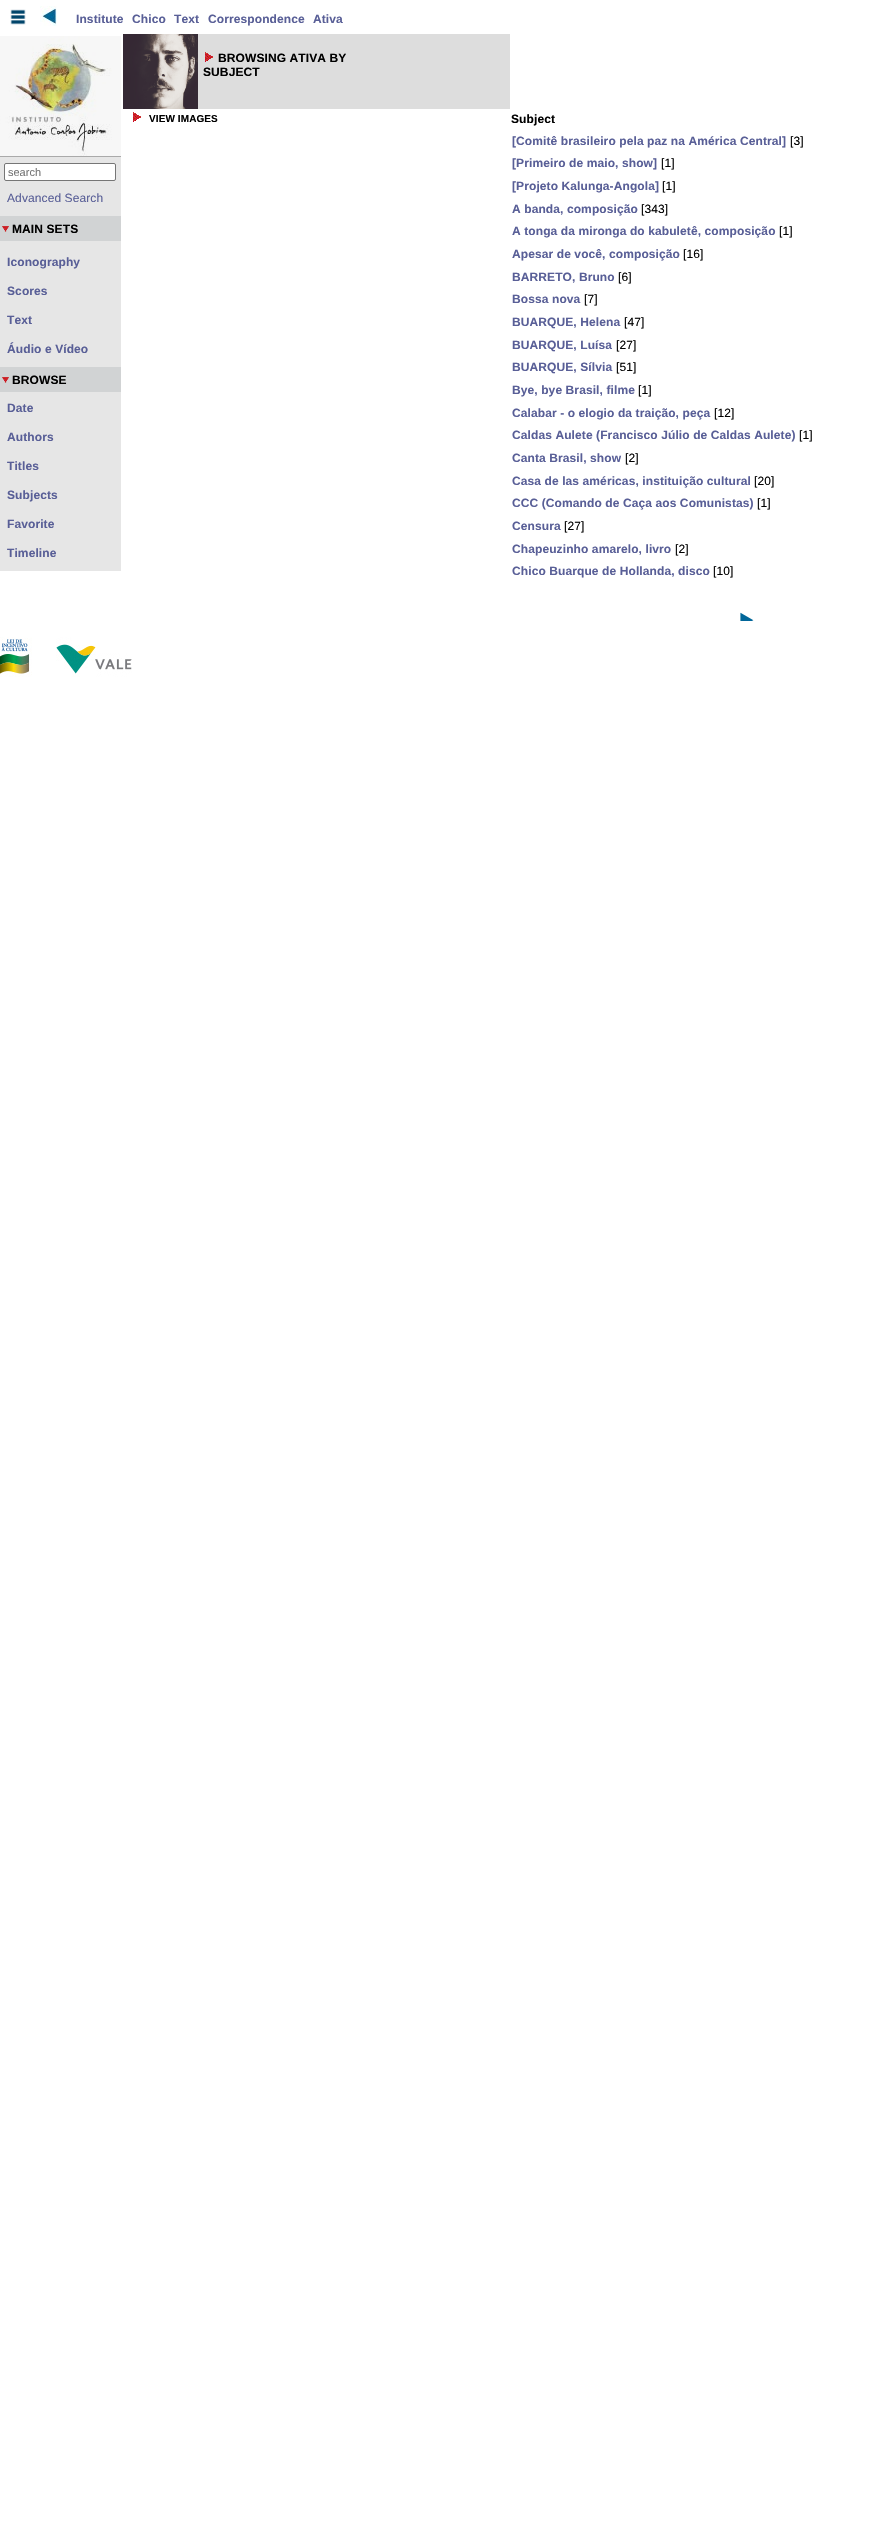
#include "include/core/SkBlurTypes.h"
#include "include/core/SkCanvas.h"
#include "include/core/SkData.h"
#include "include/core/SkFont.h"
#include "include/core/SkFontMgr.h"
#include "include/core/SkImage.h"
#include "include/core/SkMaskFilter.h"
#include "include/core/SkPaint.h"
#include "include/core/SkPathBuilder.h"
#include "include/core/SkTextBlob.h"
#include "include/effects/SkDashPathEffect.h"
#include "include/effects/SkGradientShader.h"
#include "include/utils/SkParsePath.h"

extern sk_sp<SkFontMgr> fontMgr;

void draw(SkCanvas* canvas) {
  SkPaint p;
  p.setAntiAlias(true);
  auto spacedText = [&](const char* s, float x, float y, const SkFont& font, const SkPaint& ink, float letter, float word) {
    std::vector<SkGlyphID> glyphs(font.countText(s, strlen(s), SkTextEncoding::kUTF8));
    std::vector<float> xs(glyphs.size());
    font.textToGlyphs(s, strlen(s), SkTextEncoding::kUTF8, glyphs);
    font.getXPos(glyphs, xs, x);
    float extra = 0;
    for (size_t i = 0; i < glyphs.size(); i++) {
      xs[i] += extra;
      extra += letter + word * (glyphs[i] == font.unicharToGlyph(' '));
    }
    canvas->drawTextBlob(SkTextBlob::MakeFromPosHGlyphs(glyphs, xs, y, font), 0, 0, ink);
  };
  canvas->clear(SK_ColorWHITE);
  canvas->drawImageRect(SkImages::DeferredFromEncodedData(SkData::MakeFromFileName("images/1.png")), SkRect::MakeLTRB(10, 9, 26, 25), SkSamplingOptions());
  canvas->drawImageRect(SkImages::DeferredFromEncodedData(SkData::MakeFromFileName("images/2.png")), SkRect::MakeLTRB(40, 6, 57, 26), SkSamplingOptions());
  p.setColor(SkColorSetRGB(230, 230, 230));
  canvas->drawRect(SkRect::MakeLTRB(0, 157, 121, 571), p);
  p.setColor(SkColorSetRGB(170, 170, 170));
  canvas->drawRect(SkRect::MakeLTRB(0, 36, 121, 157), p);
  canvas->drawImageRect(SkImages::DeferredFromEncodedData(SkData::MakeFromFileName("images/3.png")), SkRect::MakeLTRB(0, 36, 121, 156), SkSamplingOptions());
  p.setColor(SK_ColorWHITE);
  canvas->drawRoundRect(SkRect::MakeLTRB(4.5f, 163.5f, 115.5f, 180.5f), 1.5f, 1.5f, p);
  p.setStyle(SkPaint::kStroke_Style);
  p.setStrokeWidth(1);
  p.setColor(SkColorSetRGB(118, 118, 118));
  canvas->drawRoundRect(SkRect::MakeLTRB(4.5f, 163.5f, 115.5f, 180.5f), 1.5f, 1.5f, p);
  p.setStyle(SkPaint::kFill_Style);
  p.setColor(SkColorSetRGB(209, 211, 212));
  canvas->drawRect(SkRect::MakeLTRB(0, 216, 121, 241), p);
  canvas->drawImageRect(SkImages::DeferredFromEncodedData(SkData::MakeFromFileName("images/4.png")), SkRect::MakeLTRB(2, 226, 9, 232), SkSamplingOptions());
  canvas->drawRect(SkRect::MakeLTRB(0, 367, 121, 392), p);
  canvas->drawImageRect(SkImages::DeferredFromEncodedData(SkData::MakeFromFileName("images/4.png")), SkRect::MakeLTRB(2, 377, 9, 383), SkSamplingOptions());
  p.setColor(SkColorSetRGB(221, 221, 221));
  canvas->drawRect(SkRect::MakeLTRB(198, 34, 510, 109), p);
  canvas->drawImageRect(SkImages::DeferredFromEncodedData(SkData::MakeFromFileName("images/5.png")), SkRect::MakeLTRB(123, 34, 198, 109), SkSamplingOptions());
  canvas->drawImageRect(SkImages::DeferredFromEncodedData(SkData::MakeFromFileName("images/6.png")), SkRect::MakeLTRB(205, 52, 213, 62), SkSamplingOptions());
  canvas->drawImageRect(SkImages::DeferredFromEncodedData(SkData::MakeFromFileName("images/7.png")), SkRect::MakeLTRB(133, 112, 141, 122), SkSamplingOptions());
  canvas->drawImageRect(SkImages::DeferredFromEncodedData(SkData::MakeFromFileName("images/8.png")), SkRect::MakeLTRB(740, 612, 754, 621), SkSamplingOptions());
  canvas->drawImageRect(SkImages::DeferredFromEncodedData(SkData::MakeFromFileName("images/9.png")), SkRect::MakeLTRB(0, 637, 132, 677), SkSamplingOptions());
  SkFont font1(fontMgr->matchFamilyStyle("Liberation Sans", SkFontStyle::Bold()), 12);
  font1.setSubpixel(true);
  p.setColor(SkColorSetRGB(89, 95, 151));
  spacedText("Institute", 76, 23, font1, p, 0.1f, 0);
  spacedText("Chico", 132, 23, font1, p, 0.1f, 0);
  spacedText("Text", 174, 23, font1, p, 0.1f, 0);
  spacedText("Correspondence", 208, 23, font1, p, 0.1f, 0);
  spacedText("Ativa", 313, 23, font1, p, 0.1f, 0);
  SkFont font2(fontMgr->matchFamilyStyle("Liberation Sans", SkFontStyle::Normal()), 11);
  font2.setSubpixel(true);
  p.setColor(SkColorSetRGB(117, 117, 117));
  canvas->drawString("search", 8, 176, font2, p);
  SkFont font3(fontMgr->matchFamilyStyle("Liberation Sans", SkFontStyle::Normal()), 12);
  font3.setSubpixel(true);
  p.setColor(SkColorSetRGB(89, 95, 151));
  spacedText("Advanced Search", 7, 202, font3, p, 0.1f, 0);
  p.setColor(SK_ColorBLACK);
  spacedText("MAIN SETS", 12, 233, font1, p, 0.1f, 0);
  p.setColor(SkColorSetRGB(89, 95, 151));
  spacedText("Iconography", 7, 266, font1, p, 0.1f, 0);
  spacedText("Scores", 7, 295, font1, p, 0.1f, 0);
  spacedText("Text", 7, 324, font1, p, 0.1f, 0);
  spacedText("Áudio e Vídeo", 7, 353, font1, p, 0.1f, 0);
  p.setColor(SK_ColorBLACK);
  spacedText("BROWSE", 12, 384, font1, p, 0.1f, 0);
  p.setColor(SkColorSetRGB(89, 95, 151));
  spacedText("Date", 7, 412, font1, p, 0.1f, 0);
  spacedText("Authors", 7, 441, font1, p, 0.1f, 0);
  spacedText("Titles", 7, 470, font1, p, 0.1f, 0);
  spacedText("Subjects", 7, 499, font1, p, 0.1f, 0);
  spacedText("Favorite", 7, 528, font1, p, 0.1f, 0);
  spacedText("Timeline", 7, 557, font1, p, 0.1f, 0);
  p.setColor(SK_ColorBLACK);
  spacedText("BROWSING ATIVA BY", 218, 62, font1, p, 0.1f, 0);
  spacedText("SUBJECT", 203, 76, font1, p, 0.1f, 0);
  SkFont font4(fontMgr->matchFamilyStyle("Liberation Sans", SkFontStyle::Bold()), 10);
  font4.setSubpixel(true);
  spacedText("VIEW IMAGES", 149, 122, font4, p, 0.1f, 0);
  spacedText("Subject", 511, 123, font1, p, 0.1f, 0);
  p.setColor(SkColorSetRGB(89, 95, 151));
  spacedText("[Comitê brasileiro pela paz na América Central]", 512, 145, font1, p, 0.1f, 0);
  p.setColor(SK_ColorBLACK);
  spacedText("[3]", 790, 145, font3, p, 0.1f, 0);
  p.setColor(SkColorSetRGB(89, 95, 151));
  spacedText("[Primeiro de maio, show]", 512, 167, font1, p, 0.1f, 0);
  p.setColor(SK_ColorBLACK);
  spacedText("[1]", 661, 167, font3, p, 0.1f, 0);
  p.setColor(SkColorSetRGB(89, 95, 151));
  spacedText("[Projeto Kalunga-Angola]", 512, 190, font1, p, 0.1f, 0);
  p.setColor(SK_ColorBLACK);
  spacedText("[1]", 662, 190, font3, p, 0.1f, 0);
  p.setColor(SkColorSetRGB(89, 95, 151));
  spacedText("A banda, composição", 512, 213, font1, p, 0.1f, 0);
  p.setColor(SK_ColorBLACK);
  spacedText("[343]", 641, 213, font3, p, 0.1f, 0);
  p.setColor(SkColorSetRGB(89, 95, 151));
  spacedText("A tonga da mironga do kabuletê, composição", 512, 235, font1, p, 0.1f, 0);
  p.setColor(SK_ColorBLACK);
  spacedText("[1]", 779, 235, font3, p, 0.1f, 0);
  p.setColor(SkColorSetRGB(89, 95, 151));
  spacedText("Apesar de você, composição", 512, 258, font1, p, 0.1f, 0);
  p.setColor(SK_ColorBLACK);
  spacedText("[16]", 683, 258, font3, p, 0.1f, 0);
  p.setColor(SkColorSetRGB(89, 95, 151));
  spacedText("BARRETO, Bruno", 512, 281, font1, p, 0.1f, 0);
  p.setColor(SK_ColorBLACK);
  spacedText("[6]", 618, 281, font3, p, 0.1f, 0);
  p.setColor(SkColorSetRGB(89, 95, 151));
  spacedText("Bossa nova", 512, 303, font1, p, 0.1f, 0);
  p.setColor(SK_ColorBLACK);
  spacedText("[7]", 584, 303, font3, p, 0.1f, 0);
  p.setColor(SkColorSetRGB(89, 95, 151));
  spacedText("BUARQUE, Helena", 512, 326, font1, p, 0.1f, 0);
  p.setColor(SK_ColorBLACK);
  spacedText("[47]", 624, 326, font3, p, 0.1f, 0);
  p.setColor(SkColorSetRGB(89, 95, 151));
  spacedText("BUARQUE, Luísa", 512, 349, font1, p, 0.1f, 0);
  p.setColor(SK_ColorBLACK);
  spacedText("[27]", 616, 349, font3, p, 0.1f, 0);
  p.setColor(SkColorSetRGB(89, 95, 151));
  spacedText("BUARQUE, Sílvia", 512, 371, font1, p, 0.1f, 0);
  p.setColor(SK_ColorBLACK);
  spacedText("[51]", 616, 371, font3, p, 0.1f, 0);
  p.setColor(SkColorSetRGB(89, 95, 151));
  spacedText("Bye, bye Brasil, filme", 512, 394, font1, p, 0.1f, 0);
  p.setColor(SK_ColorBLACK);
  spacedText("[1]", 638, 394, font3, p, 0.1f, 0);
  p.setColor(SkColorSetRGB(89, 95, 151));
  spacedText("Calabar - o elogio da traição, peça", 512, 417, font1, p, 0.1f, 0);
  p.setColor(SK_ColorBLACK);
  spacedText("[12]", 714, 417, font3, p, 0.1f, 0);
  p.setColor(SkColorSetRGB(89, 95, 151));
  spacedText("Caldas Aulete (Francisco Júlio de Caldas Aulete)", 512, 439, font1, p, 0.1f, 0);
  p.setColor(SK_ColorBLACK);
  spacedText("[1]", 799, 439, font3, p, 0.1f, 0);
  p.setColor(SkColorSetRGB(89, 95, 151));
  spacedText("Canta Brasil, show", 512, 462, font1, p, 0.1f, 0);
  p.setColor(SK_ColorBLACK);
  spacedText("[2]", 625, 462, font3, p, 0.1f, 0);
  p.setColor(SkColorSetRGB(89, 95, 151));
  spacedText("Casa de las américas, instituição cultural", 512, 485, font1, p, 0.1f, 0);
  p.setColor(SK_ColorBLACK);
  spacedText("[20]", 754, 485, font3, p, 0.1f, 0);
  p.setColor(SkColorSetRGB(89, 95, 151));
  spacedText("CCC (Comando de Caça aos Comunistas)", 512, 507, font1, p, 0.1f, 0);
  p.setColor(SK_ColorBLACK);
  spacedText("[1]", 757, 507, font3, p, 0.1f, 0);
  p.setColor(SkColorSetRGB(89, 95, 151));
  spacedText("Censura", 512, 530, font1, p, 0.1f, 0);
  p.setColor(SK_ColorBLACK);
  spacedText("[27]", 564, 530, font3, p, 0.1f, 0);
  p.setColor(SkColorSetRGB(89, 95, 151));
  spacedText("Chapeuzinho amarelo, livro", 512, 553, font1, p, 0.1f, 0);
  p.setColor(SK_ColorBLACK);
  spacedText("[2]", 675, 553, font3, p, 0.1f, 0);
  p.setColor(SkColorSetRGB(89, 95, 151));
  spacedText("Chico Buarque de Hollanda, disco", 512, 575, font1, p, 0.1f, 0);
  p.setColor(SK_ColorBLACK);
  spacedText("[10]", 713, 575, font3, p, 0.1f, 0);
}
